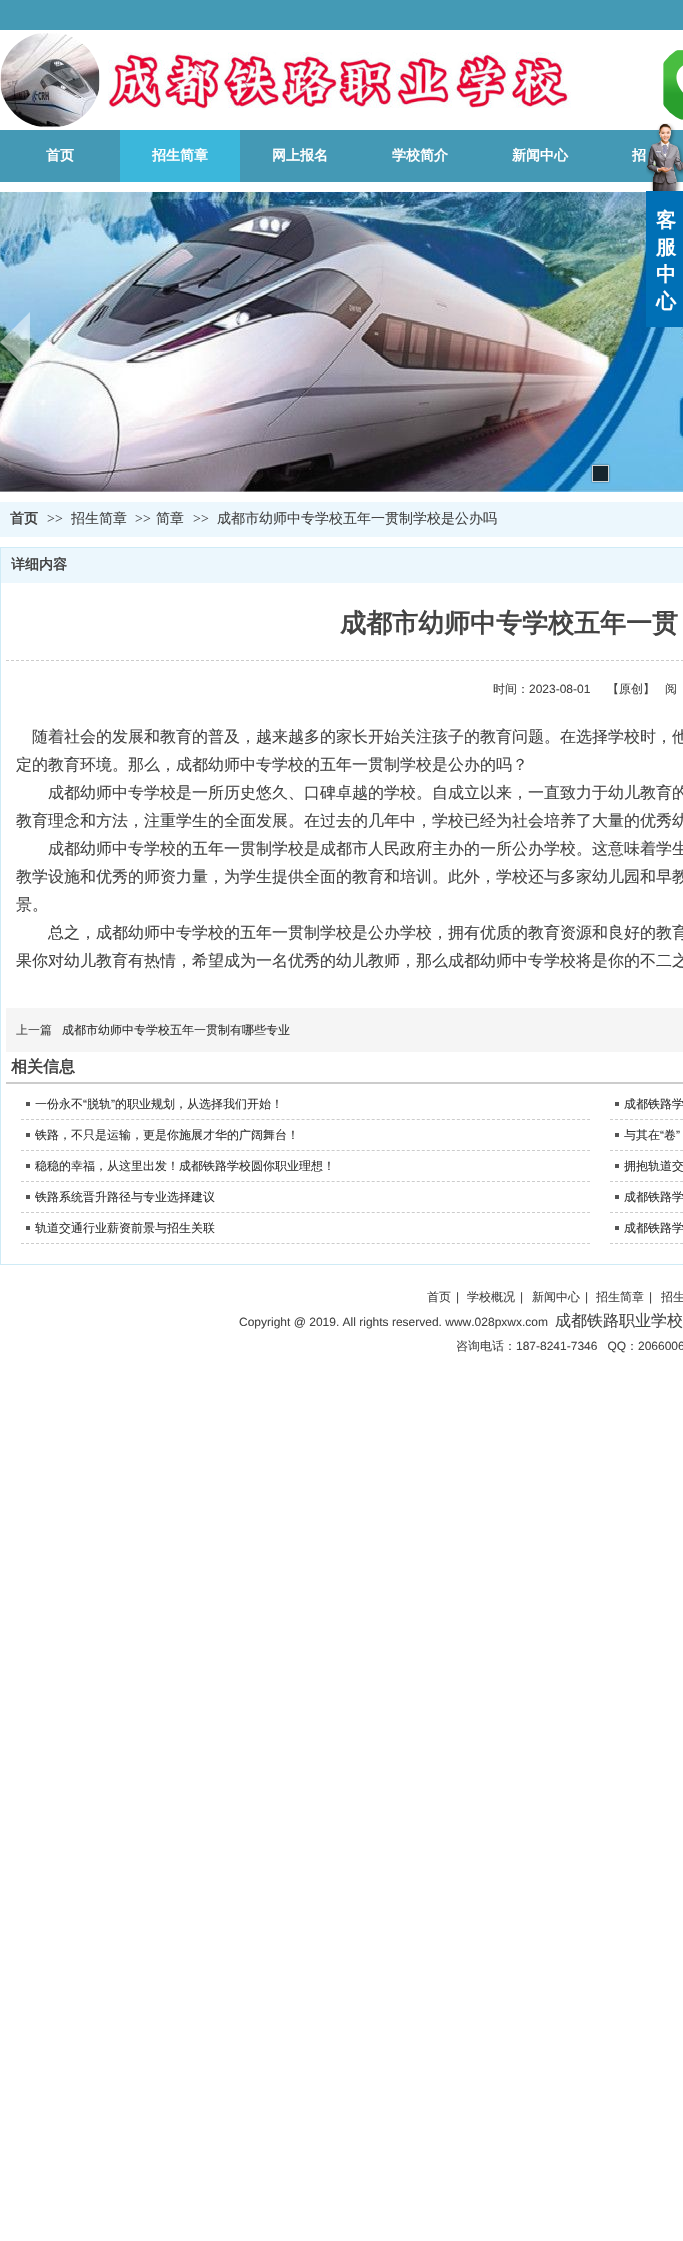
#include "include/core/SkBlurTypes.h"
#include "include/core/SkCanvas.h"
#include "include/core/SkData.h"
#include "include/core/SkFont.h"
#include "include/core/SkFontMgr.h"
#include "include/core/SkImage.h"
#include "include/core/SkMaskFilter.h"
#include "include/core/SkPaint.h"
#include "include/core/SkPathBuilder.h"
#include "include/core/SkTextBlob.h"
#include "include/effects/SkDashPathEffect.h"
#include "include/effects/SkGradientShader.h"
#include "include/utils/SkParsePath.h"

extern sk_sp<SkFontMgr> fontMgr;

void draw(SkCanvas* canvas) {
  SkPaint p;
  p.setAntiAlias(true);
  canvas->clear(SK_ColorWHITE);
  canvas->drawImageRect(SkImages::DeferredFromEncodedData(SkData::MakeFromFileName("images/1.png")), SkRect::MakeLTRB(0, 33, 100, 128), SkSamplingOptions());
  canvas->drawImageRect(SkImages::DeferredFromEncodedData(SkData::MakeFromFileName("images/2.png")), SkRect::MakeLTRB(108, 52, 571, 110), SkSamplingOptions());
  canvas->drawImageRect(SkImages::DeferredFromEncodedData(SkData::MakeFromFileName("images/3.png")), SkRect::MakeLTRB(663, 50, 683, 120), SkSamplingOptions());
  p.setColor(SkColorSetRGB(68, 154, 181));
  canvas->drawRect(SkRect::MakeLTRB(0, 0, 683, 30), p);
  p.setColor(SkColorSetRGB(68, 153, 181));
  canvas->drawRect(SkRect::MakeLTRB(0, 130, 683, 182), p);
  p.setColor(SkColorSetRGB(59, 183, 219));
  canvas->drawRect(SkRect::MakeLTRB(120, 130, 240, 182), p);
  canvas->drawImageRect(SkImages::DeferredFromEncodedData(SkData::MakeFromFileName("images/4.png")), SkRect::MakeLTRB(0, 192, 683, 492), SkSamplingOptions());
  p.setColor(SkColorSetARGB(128, 255, 255, 255));
  canvas->drawPath(SkPathBuilder().moveTo(30, 312).lineTo(30, 372).lineTo(0, 342).close().detach(), p);
  canvas->save();
  canvas->clipPath(SkPathBuilder(SkPathFillType::kEvenOdd).moveTo(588, 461).lineTo(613, 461).lineTo(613, 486).lineTo(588, 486).close().moveTo(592, 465).lineTo(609, 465).lineTo(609, 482).lineTo(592, 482).close().detach(), true);
  p.setColor(SkColorSetARGB(122, 0, 0, 0));
  p.setMaskFilter(SkMaskFilter::MakeBlur(kNormal_SkBlurStyle, 1));
  canvas->drawRect(SkRect::MakeLTRB(592, 465, 609, 482), p);
  p.setMaskFilter(nullptr);
  canvas->restore();
  p.setColor(SkColorSetARGB(204, 0, 0, 0));
  canvas->drawRect(SkRect::MakeLTRB(592.5f, 465.5f, 608.5f, 481.5f), p);
  p.setStyle(SkPaint::kStroke_Style);
  p.setStrokeWidth(1);
  p.setColor(SkColorSetRGB(208, 212, 213));
  canvas->drawRect(SkRect::MakeLTRB(592.5f, 465.5f, 608.5f, 481.5f), p);
  canvas->drawImageRect(SkImages::DeferredFromEncodedData(SkData::MakeFromFileName("images/5.png")), SkRect::MakeLTRB(646, 123, 683, 191), SkSamplingOptions());
  p.setStyle(SkPaint::kFill_Style);
  p.setColor(SkColorSetRGB(0, 112, 182));
  canvas->drawRect(SkRect::MakeLTRB(646, 191, 683, 327), p);
  p.setColor(SkColorSetRGB(236, 247, 253));
  canvas->drawRect(SkRect::MakeLTRB(0, 502, 683, 537), p);
  p.setStyle(SkPaint::kStroke_Style);
  p.setColor(SkColorSetRGB(207, 235, 246));
  canvas->drawRect(SkRect::MakeLTRB(0.5f, 547.5f, 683.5f, 1264.5f), p);
  p.setStyle(SkPaint::kFill_Style);
  p.setColor(SkColorSetRGB(236, 247, 253));
  canvas->drawRect(SkRect::MakeLTRB(1, 548, 683, 583), p);
  p.setStyle(SkPaint::kStroke_Style);
  p.setColor(SkColorSetRGB(204, 204, 204));
  p.setPathEffect(SkDashPathEffect::Make({{3, 2}}, 0));
  canvas->drawPath(SkPathBuilder().moveTo(6, 660.5f).lineTo(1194, 660.5f).detach(), p);
  p.setPathEffect(nullptr);
  p.setStyle(SkPaint::kFill_Style);
  p.setColor(SkColorSetRGB(245, 245, 245));
  canvas->drawRect(SkRect::MakeLTRB(6, 1008, 683, 1052), p);
  p.setColor(SkColorSetRGB(204, 204, 204));
  canvas->drawRect(SkRect::MakeLTRB(6, 1082, 683, 1084), p);
  p.setStyle(SkPaint::kStroke_Style);
  p.setPathEffect(SkDashPathEffect::Make({{3, 2.01f}}, 0));
  canvas->drawPath(SkPathBuilder().moveTo(21, 1119.5f).lineTo(590, 1119.5f).detach(), p);
  p.setPathEffect(nullptr);
  p.setStyle(SkPaint::kFill_Style);
  p.setColor(SkColorSetRGB(85, 85, 85));
  canvas->drawRect(SkRect::MakeLTRB(26, 1102, 30, 1106), p);
  p.setStyle(SkPaint::kStroke_Style);
  p.setColor(SkColorSetRGB(204, 204, 204));
  p.setPathEffect(SkDashPathEffect::Make({{3, 2.01f}}, 0));
  canvas->drawPath(SkPathBuilder().moveTo(610, 1119.5f).lineTo(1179, 1119.5f).detach(), p);
  p.setPathEffect(nullptr);
  p.setStyle(SkPaint::kFill_Style);
  p.setColor(SkColorSetRGB(85, 85, 85));
  canvas->drawRect(SkRect::MakeLTRB(615, 1102, 619, 1106), p);
  p.setStyle(SkPaint::kStroke_Style);
  p.setColor(SkColorSetRGB(204, 204, 204));
  p.setPathEffect(SkDashPathEffect::Make({{3, 2.01f}}, 0));
  canvas->drawPath(SkPathBuilder().moveTo(21, 1150.5f).lineTo(590, 1150.5f).detach(), p);
  p.setPathEffect(nullptr);
  p.setStyle(SkPaint::kFill_Style);
  p.setColor(SkColorSetRGB(85, 85, 85));
  canvas->drawRect(SkRect::MakeLTRB(26, 1133, 30, 1137), p);
  p.setStyle(SkPaint::kStroke_Style);
  p.setColor(SkColorSetRGB(204, 204, 204));
  p.setPathEffect(SkDashPathEffect::Make({{3, 2.01f}}, 0));
  canvas->drawPath(SkPathBuilder().moveTo(610, 1150.5f).lineTo(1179, 1150.5f).detach(), p);
  p.setPathEffect(nullptr);
  p.setStyle(SkPaint::kFill_Style);
  p.setColor(SkColorSetRGB(85, 85, 85));
  canvas->drawRect(SkRect::MakeLTRB(615, 1133, 619, 1137), p);
  p.setStyle(SkPaint::kStroke_Style);
  p.setColor(SkColorSetRGB(204, 204, 204));
  p.setPathEffect(SkDashPathEffect::Make({{3, 2.01f}}, 0));
  canvas->drawPath(SkPathBuilder().moveTo(21, 1181.5f).lineTo(590, 1181.5f).detach(), p);
  p.setPathEffect(nullptr);
  p.setStyle(SkPaint::kFill_Style);
  p.setColor(SkColorSetRGB(85, 85, 85));
  canvas->drawRect(SkRect::MakeLTRB(26, 1164, 30, 1168), p);
  p.setStyle(SkPaint::kStroke_Style);
  p.setColor(SkColorSetRGB(204, 204, 204));
  p.setPathEffect(SkDashPathEffect::Make({{3, 2.01f}}, 0));
  canvas->drawPath(SkPathBuilder().moveTo(610, 1181.5f).lineTo(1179, 1181.5f).detach(), p);
  p.setPathEffect(nullptr);
  p.setStyle(SkPaint::kFill_Style);
  p.setColor(SkColorSetRGB(85, 85, 85));
  canvas->drawRect(SkRect::MakeLTRB(615, 1164, 619, 1168), p);
  p.setStyle(SkPaint::kStroke_Style);
  p.setColor(SkColorSetRGB(204, 204, 204));
  p.setPathEffect(SkDashPathEffect::Make({{3, 2.01f}}, 0));
  canvas->drawPath(SkPathBuilder().moveTo(21, 1212.5f).lineTo(590, 1212.5f).detach(), p);
  p.setPathEffect(nullptr);
  p.setStyle(SkPaint::kFill_Style);
  p.setColor(SkColorSetRGB(85, 85, 85));
  canvas->drawRect(SkRect::MakeLTRB(26, 1195, 30, 1199), p);
  p.setStyle(SkPaint::kStroke_Style);
  p.setColor(SkColorSetRGB(204, 204, 204));
  p.setPathEffect(SkDashPathEffect::Make({{3, 2.01f}}, 0));
  canvas->drawPath(SkPathBuilder().moveTo(610, 1212.5f).lineTo(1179, 1212.5f).detach(), p);
  p.setPathEffect(nullptr);
  p.setStyle(SkPaint::kFill_Style);
  p.setColor(SkColorSetRGB(85, 85, 85));
  canvas->drawRect(SkRect::MakeLTRB(615, 1195, 619, 1199), p);
  p.setStyle(SkPaint::kStroke_Style);
  p.setColor(SkColorSetRGB(204, 204, 204));
  p.setPathEffect(SkDashPathEffect::Make({{3, 2.01f}}, 0));
  canvas->drawPath(SkPathBuilder().moveTo(21, 1243.5f).lineTo(590, 1243.5f).detach(), p);
  p.setPathEffect(nullptr);
  p.setStyle(SkPaint::kFill_Style);
  p.setColor(SkColorSetRGB(85, 85, 85));
  canvas->drawRect(SkRect::MakeLTRB(26, 1226, 30, 1230), p);
  p.setStyle(SkPaint::kStroke_Style);
  p.setColor(SkColorSetRGB(204, 204, 204));
  p.setPathEffect(SkDashPathEffect::Make({{3, 2.01f}}, 0));
  canvas->drawPath(SkPathBuilder().moveTo(610, 1243.5f).lineTo(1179, 1243.5f).detach(), p);
  p.setPathEffect(nullptr);
  p.setStyle(SkPaint::kFill_Style);
  p.setColor(SkColorSetRGB(85, 85, 85));
  canvas->drawRect(SkRect::MakeLTRB(615, 1226, 619, 1230), p);
  SkFont font1(fontMgr->matchFamilyStyle("WenQuanYi Zen Hei", SkFontStyle::Bold()), 14);
  font1.setSubpixel(true);
  p.setColor(SK_ColorWHITE);
  canvas->drawString("首页", 46, 160, font1, p);
  canvas->drawString("招生简章", 152, 160, font1, p);
  canvas->drawString("网上报名", 272, 160, font1, p);
  canvas->drawString("学校简介", 392, 160, font1, p);
  canvas->drawString("新闻中心", 512, 160, font1, p);
  canvas->drawString("招", 632, 160, font1, p);
  SkFont font2(fontMgr->matchFamilyStyle("WenQuanYi Zen Hei", SkFontStyle::Bold()), 20);
  font2.setSubpixel(true);
  canvas->drawString("客", 656, 227, font2, p);
  canvas->drawString("服", 656, 254, font2, p);
  canvas->drawString("中", 656, 281, font2, p);
  canvas->drawString("心", 656, 308, font2, p);
  p.setColor(SkColorSetRGB(68, 68, 68));
  canvas->drawString("首页", 10, 523, font1, p);
  SkFont font3(fontMgr->matchFamilyStyle("Liberation Serif", SkFontStyle::Normal()), 14);
  font3.setSubpixel(true);
  canvas->drawString(">>", 47, 523, font3, p);
  SkFont font4(fontMgr->matchFamilyStyle("WenQuanYi Zen Hei", SkFontStyle(500, SkFontStyle::kNormal_Width, SkFontStyle::kUpright_Slant)), 14);
  font4.setSubpixel(true);
  canvas->drawString("招生简章", 71, 523, font4, p);
  canvas->drawString(">>", 135, 523, font3, p);
  canvas->drawString("简章", 156, 523, font4, p);
  canvas->drawString(">>", 193, 523, font3, p);
  canvas->drawString("成都市幼师中专学校五年一贯制学校是公办吗", 217, 523, font4, p);
  canvas->drawString("详细内容", 11, 569, font1, p);
  SkFont font5(fontMgr->matchFamilyStyle("WenQuanYi Zen Hei", SkFontStyle::Bold()), 26);
  font5.setSubpixel(true);
  canvas->drawString("成都市幼师中专学校五年一贯", 340, 632, font5, p);
  SkFont font6(fontMgr->matchFamilyStyle("WenQuanYi Zen Hei", SkFontStyle(500, SkFontStyle::kNormal_Width, SkFontStyle::kUpright_Slant)), 12);
  font6.setSubpixel(true);
  canvas->drawString("时间：", 493, 693, font6, p);
  SkFont font7(fontMgr->matchFamilyStyle("Liberation Sans", SkFontStyle::Normal()), 12);
  font7.setSubpixel(true);
  canvas->drawString("2023-08-01", 529, 693, font7, p);
  canvas->drawString("【原创】", 607, 693, font6, p);
  canvas->drawString("阅", 665, 693, font6, p);
  SkFont font8(fontMgr->matchFamilyStyle("WenQuanYi Zen Hei", SkFontStyle(500, SkFontStyle::kNormal_Width, SkFontStyle::kUpright_Slant)), 16);
  font8.setSubpixel(true);
  canvas->drawString("随着社会的发展和教育的普及，越来越多的家长开始关注孩子的教育问题。在选择学校时，他", 32, 742, font8, p);
  canvas->drawString("定的教育环境。那么，成都幼师中专学校的五年一贯制学校是公办的吗？", 16, 770, font8, p);
  canvas->drawString("成都幼师中专学校是一所历史悠久、口碑卓越的学校。自成立以来，一直致力于幼儿教育的", 48, 798, font8, p);
  canvas->drawString("教育理念和方法，注重学生的全面发展。在过去的几年中，学校已经为社会培养了大量的优秀幼", 16, 826, font8, p);
  canvas->drawString("成都幼师中专学校的五年一贯制学校是成都市人民政府主办的一所公办学校。这意味着学生", 48, 854, font8, p);
  canvas->drawString("教学设施和优秀的师资力量，为学生提供全面的教育和培训。此外，学校还与多家幼儿园和早教", 16, 882, font8, p);
  canvas->drawString("景。", 16, 910, font8, p);
  canvas->drawString("总之，成都幼师中专学校的五年一贯制学校是公办学校，拥有优质的教育资源和良好的教育", 48, 938, font8, p);
  canvas->drawString("果你对幼儿教育有热情，希望成为一名优秀的幼儿教师，那么成都幼师中专学校将是你的不二之", 16, 966, font8, p);
  canvas->drawString("上一篇", 16, 1034, font6, p);
  p.setColor(SkColorSetRGB(51, 51, 51));
  canvas->drawString("成都市幼师中专学校五年一贯制有哪些专业", 62, 1034, font6, p);
  SkFont font9(fontMgr->matchFamilyStyle("WenQuanYi Zen Hei", SkFontStyle::Bold()), 16);
  font9.setSubpixel(true);
  p.setColor(SkColorSetRGB(68, 68, 68));
  canvas->drawString("相关信息", 11, 1072, font9, p);
  p.setColor(SkColorSetRGB(51, 51, 51));
  canvas->drawString("一份永不", 35, 1108, font6, p);
  canvas->drawString("“", 83, 1108, font7, p);
  canvas->drawString("脱轨", 87, 1108, font6, p);
  canvas->drawString("”", 111, 1108, font7, p);
  canvas->drawString("的职业规划，从选择我们开始！", 115, 1108, font6, p);
  canvas->drawString("成都铁路学", 624, 1108, font6, p);
  canvas->drawString("铁路，不只是运输，更是你施展才华的广阔舞台！", 35, 1139, font6, p);
  canvas->drawString("与其在", 624, 1139, font6, p);
  canvas->drawString("“", 660, 1139, font7, p);
  canvas->drawString("卷", 664, 1139, font6, p);
  canvas->drawString("”", 676, 1139, font7, p);
  canvas->drawString("稳稳的幸福，从这里出发！成都铁路学校圆你职业理想！", 35, 1170, font6, p);
  canvas->drawString("拥抱轨道交", 624, 1170, font6, p);
  canvas->drawString("铁路系统晋升路径与专业选择建议", 35, 1201, font6, p);
  canvas->drawString("成都铁路学", 624, 1201, font6, p);
  canvas->drawString("轨道交通行业薪资前景与招生关联", 35, 1232, font6, p);
  canvas->drawString("成都铁路学", 624, 1232, font6, p);
  p.setColor(SkColorSetRGB(68, 68, 68));
  canvas->drawString("首页", 427, 1301, font6, p);
  canvas->drawString("|", 456, 1301, font7, p);
  canvas->drawString("学校概况", 467, 1301, font6, p);
  canvas->drawString("|", 520, 1301, font7, p);
  canvas->drawString("新闻中心", 532, 1301, font6, p);
  canvas->drawString("|", 585, 1301, font7, p);
  canvas->drawString("招生简章", 596, 1301, font6, p);
  canvas->drawString("|", 649, 1301, font7, p);
  canvas->drawString("招生", 661, 1301, font6, p);
  canvas->drawString("Copyright @ 2019. All rights reserved. www.028pxwx.com", 239, 1326, font7, p);
  canvas->drawString("成都铁路职业学校", 555, 1326, font8, p);
  canvas->drawString("咨询电话：", 456, 1350, font6, p);
  canvas->drawString("187-8241-7346   QQ", 516, 1350, font7, p);
  canvas->drawString("：", 626, 1350, font6, p);
  canvas->drawString("2066006", 638, 1350, font7, p);
}
